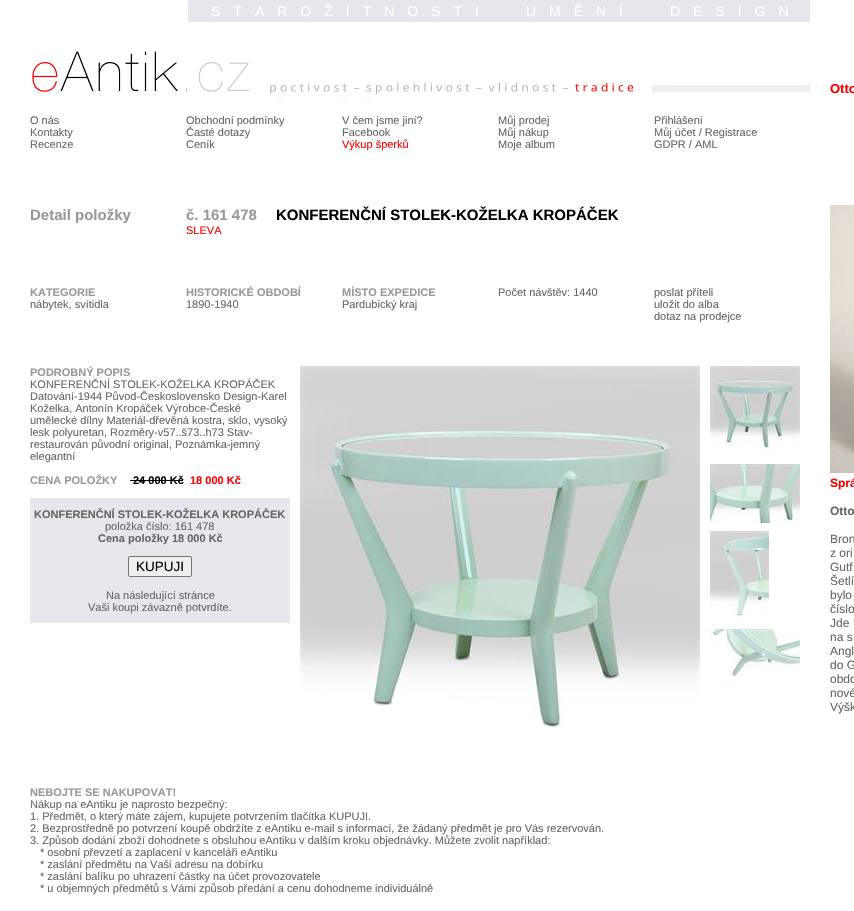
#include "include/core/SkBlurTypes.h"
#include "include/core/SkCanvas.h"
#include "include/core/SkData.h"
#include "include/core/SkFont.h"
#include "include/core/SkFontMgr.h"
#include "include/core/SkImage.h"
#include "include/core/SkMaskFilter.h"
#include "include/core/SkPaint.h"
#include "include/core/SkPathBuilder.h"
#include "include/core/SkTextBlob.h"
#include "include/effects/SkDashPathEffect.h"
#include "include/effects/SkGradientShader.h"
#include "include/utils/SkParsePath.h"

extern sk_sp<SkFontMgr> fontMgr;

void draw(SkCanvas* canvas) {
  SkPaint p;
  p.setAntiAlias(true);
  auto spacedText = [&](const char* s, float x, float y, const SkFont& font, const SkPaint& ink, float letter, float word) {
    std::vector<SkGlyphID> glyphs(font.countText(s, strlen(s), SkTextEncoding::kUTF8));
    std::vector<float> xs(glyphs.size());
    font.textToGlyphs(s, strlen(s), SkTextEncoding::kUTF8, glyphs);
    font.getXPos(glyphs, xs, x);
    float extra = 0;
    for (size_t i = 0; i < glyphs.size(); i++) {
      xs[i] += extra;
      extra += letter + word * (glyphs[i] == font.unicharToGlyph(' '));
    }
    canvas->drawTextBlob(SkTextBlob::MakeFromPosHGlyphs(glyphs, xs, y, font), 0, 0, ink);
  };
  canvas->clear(SK_ColorWHITE);
  p.setColor(SkColorSetRGB(230, 230, 236));
  canvas->drawRect(SkRect::MakeLTRB(188, 0, 810, 22), p);
  canvas->drawImageRect(SkImages::DeferredFromEncodedData(SkData::MakeFromFileName("images/1.png")), SkRect::MakeLTRB(32, 51, 810, 100), SkSamplingOptions());
  p.setColor(SK_ColorBLACK);
  canvas->drawRect(SkRect::MakeLTRB(130, 480, 183, 481), p);
  p.setColor(SkColorSetRGB(230, 230, 236));
  canvas->drawRect(SkRect::MakeLTRB(30, 498, 290, 623), p);
  p.setColor(SkColorSetRGB(239, 239, 239));
  canvas->drawRoundRect(SkRect::MakeLTRB(128.5f, 556.5f, 191.5f, 576.5f), 1.5f, 1.5f, p);
  p.setStyle(SkPaint::kStroke_Style);
  p.setStrokeWidth(1);
  p.setColor(SkColorSetRGB(118, 118, 118));
  canvas->drawRoundRect(SkRect::MakeLTRB(128.5f, 556.5f, 191.5f, 576.5f), 1.5f, 1.5f, p);
  canvas->drawImageRect(SkImages::DeferredFromEncodedData(SkData::MakeFromFileName("images/2.png")), SkRect::MakeLTRB(300, 366, 700, 732), SkSamplingOptions());
  canvas->drawImageRect(SkImages::DeferredFromEncodedData(SkData::MakeFromFileName("images/3.png")), SkRect::MakeLTRB(710, 366, 800, 454), SkSamplingOptions());
  canvas->drawImageRect(SkImages::DeferredFromEncodedData(SkData::MakeFromFileName("images/4.png")), SkRect::MakeLTRB(710, 464, 800, 523), SkSamplingOptions());
  canvas->drawImageRect(SkImages::DeferredFromEncodedData(SkData::MakeFromFileName("images/5.png")), SkRect::MakeLTRB(710, 531, 769, 619), SkSamplingOptions());
  canvas->drawImageRect(SkImages::DeferredFromEncodedData(SkData::MakeFromFileName("images/6.png")), SkRect::MakeLTRB(710, 629, 800, 677), SkSamplingOptions());
  canvas->drawImageRect(SkImages::DeferredFromEncodedData(SkData::MakeFromFileName("images/7.png")), SkRect::MakeLTRB(830, 205, 854, 473), SkSamplingOptions());
  SkFont font1(fontMgr->matchFamilyStyle("Liberation Sans", SkFontStyle::Normal()), 14);
  font1.setSubpixel(true);
  p.setStyle(SkPaint::kFill_Style);
  p.setColor(SK_ColorWHITE);
  spacedText("STAROŽITNOSTI UMĚNÍ DESIGN", 211, 16, font1, p, 13, 17);
  SkFont font2(fontMgr->matchFamilyStyle("Liberation Sans", SkFontStyle::Normal()), 11);
  font2.setSubpixel(true);
  p.setColor(SkColorSetRGB(102, 102, 102));
  canvas->drawString("O nás", 30, 124, font2, p);
  canvas->drawString("Kontakty", 30, 136, font2, p);
  canvas->drawString("Recenze", 30, 148, font2, p);
  canvas->drawString("Obchodní podmínky", 186, 124, font2, p);
  canvas->drawString("Časté dotazy", 186, 136, font2, p);
  canvas->drawString("Ceník", 186, 148, font2, p);
  canvas->drawString("V čem jsme jiní?", 342, 124, font2, p);
  canvas->drawString("Facebook", 342, 136, font2, p);
  p.setColor(SkColorSetRGB(255, 0, 0));
  canvas->drawString("Výkup šperků", 342, 148, font2, p);
  p.setColor(SkColorSetRGB(102, 102, 102));
  canvas->drawString("Můj prodej", 498, 124, font2, p);
  canvas->drawString("Můj nákup", 498, 136, font2, p);
  canvas->drawString("Moje album", 498, 148, font2, p);
  canvas->drawString("Přihlášení", 654, 124, font2, p);
  canvas->drawString("Můj účet / Registrace", 654, 136, font2, p);
  canvas->drawString("GDPR / AML", 654, 148, font2, p);
  SkFont font3(fontMgr->matchFamilyStyle("Liberation Sans", SkFontStyle::Bold()), 15);
  font3.setSubpixel(true);
  p.setColor(SkColorSetRGB(153, 153, 153));
  canvas->drawString("Detail položky", 30, 220, font3, p);
  canvas->drawString("č. 161 478", 186, 220, font3, p);
  p.setColor(SK_ColorBLACK);
  canvas->drawString("KONFERENČNÍ STOLEK-KOŽELKA KROPÁČEK", 276, 220, font3, p);
  p.setColor(SkColorSetRGB(255, 0, 0));
  canvas->drawString("SLEVA", 186, 234, font2, p);
  SkFont font4(fontMgr->matchFamilyStyle("Liberation Sans", SkFontStyle::Bold()), 11);
  font4.setSubpixel(true);
  p.setColor(SkColorSetRGB(153, 153, 153));
  canvas->drawString("KATEGORIE", 30, 296, font4, p);
  p.setColor(SkColorSetRGB(102, 102, 102));
  canvas->drawString("nábytek, svítidla", 30, 308, font2, p);
  p.setColor(SkColorSetRGB(153, 153, 153));
  canvas->drawString("HISTORICKÉ OBDOBÍ", 186, 296, font4, p);
  p.setColor(SkColorSetRGB(102, 102, 102));
  canvas->drawString("1890-1940", 186, 308, font2, p);
  p.setColor(SkColorSetRGB(153, 153, 153));
  canvas->drawString("MÍSTO EXPEDICE", 342, 296, font4, p);
  p.setColor(SkColorSetRGB(102, 102, 102));
  canvas->drawString("Pardubický kraj", 342, 308, font2, p);
  canvas->drawString("Počet návštěv: 1440", 498, 296, font2, p);
  canvas->drawString("poslat příteli", 654, 296, font2, p);
  canvas->drawString("uložit do alba", 654, 308, font2, p);
  canvas->drawString("dotaz na prodejce", 654, 320, font2, p);
  p.setColor(SkColorSetRGB(153, 153, 153));
  canvas->drawString("PODROBNÝ POPIS", 30, 376, font4, p);
  p.setColor(SkColorSetRGB(102, 102, 102));
  canvas->drawString("KONFERENČNÍ STOLEK-KOŽELKA KROPÁČEK", 30, 388, font2, p);
  canvas->drawString("Datování-1944 Původ-Československo Design-Karel", 30, 400, font2, p);
  canvas->drawString("Koželka, Antonín Kropáček Výrobce-České", 30, 412, font2, p);
  canvas->drawString("umělecké dílny Materiál-dřevěná kostra, sklo, vysoký", 30, 424, font2, p);
  canvas->drawString("lesk polyuretan, Rozměry-v57..š73..h73 Stav-", 30, 436, font2, p);
  canvas->drawString("restaurován původní original, Poznámka-jemný", 30, 448, font2, p);
  canvas->drawString("elegantní", 30, 460, font2, p);
  p.setColor(SkColorSetRGB(153, 153, 153));
  canvas->drawString("CENA POLOŽKY", 30, 484, font4, p);
  p.setColor(SK_ColorBLACK);
  canvas->drawString("24 000 Kč", 133, 484, font4, p);
  p.setColor(SkColorSetRGB(255, 0, 0));
  canvas->drawString("18 000 Kč", 190, 484, font4, p);
  p.setColor(SkColorSetRGB(102, 102, 102));
  canvas->drawString("KONFERENČNÍ STOLEK-KOŽELKA KROPÁČEK", 34, 518, font4, p);
  canvas->drawString("položka číslo: 161 478", 105, 530, font2, p);
  canvas->drawString("Cena položky 18 000 Kč", 98, 542, font4, p);
  SkFont font5(fontMgr->matchFamilyStyle("Liberation Sans", SkFontStyle::Normal()), 13.5f);
  font5.setSubpixel(true);
  p.setColor(SK_ColorBLACK);
  canvas->drawString("KUPUJI", 136, 571, font5, p);
  p.setColor(SkColorSetRGB(102, 102, 102));
  canvas->drawString("Na následující stránce", 106, 599, font2, p);
  canvas->drawString("Vaši koupi závazně potvrdíte.", 88, 611, font2, p);
  p.setColor(SkColorSetRGB(153, 153, 153));
  canvas->drawString("NEBOJTE SE NAKUPOVAT!", 30, 796, font4, p);
  p.setColor(SkColorSetRGB(102, 102, 102));
  canvas->drawString("Nákup na eAntiku je naprosto bezpečný:", 30, 808, font2, p);
  canvas->drawString("1. Předmět, o který máte zájem, kupujete potvrzením tlačítka KUPUJI.", 30, 820, font2, p);
  canvas->drawString("2. Bezprostředně po potvrzení koupě obdržíte z eAntiku e-mail s informací, že žádaný předmět je pro Vás rezervován.", 30, 832, font2, p);
  canvas->drawString("3. Způsob dodání zboží dohodnete s obsluhou eAntiku v dalším kroku objednávky. Můžete zvolit například:", 30, 844, font2, p);
  canvas->drawString("* osobní převzetí a zaplacení v kanceláři eAntiku", 40, 856, font2, p);
  canvas->drawString("* zaslání předmětu na Vaši adresu na dobírku", 40, 868, font2, p);
  canvas->drawString("* zaslání balíku po uhrazení částky na účet provozovatele", 40, 880, font2, p);
  canvas->drawString("* u objemných předmětů s Vámi způsob předání a cenu dohodneme individuálně", 40, 892, font2, p);
  SkFont font6(fontMgr->matchFamilyStyle("Liberation Sans", SkFontStyle::Bold()), 13);
  font6.setSubpixel(true);
  p.setColor(SkColorSetRGB(255, 0, 0));
  canvas->drawString("Otto", 830, 93, font6, p);
  SkFont font7(fontMgr->matchFamilyStyle("Liberation Sans", SkFontStyle::Bold()), 12);
  font7.setSubpixel(true);
  canvas->drawString("Sprá", 830, 487, font7, p);
  p.setColor(SkColorSetRGB(102, 102, 102));
  canvas->drawString("Otto", 830, 515, font7, p);
  SkFont font8(fontMgr->matchFamilyStyle("Liberation Sans", SkFontStyle::Normal()), 12);
  font8.setSubpixel(true);
  canvas->drawString("Bron", 830, 543, font8, p);
  canvas->drawString("z ori", 830, 557, font8, p);
  canvas->drawString("Gutf", 830, 571, font8, p);
  canvas->drawString("Šetlí", 830, 585, font8, p);
  canvas->drawString("bylo", 830, 599, font8, p);
  canvas->drawString("číslo", 830, 613, font8, p);
  canvas->drawString("Jde", 830, 627, font8, p);
  canvas->drawString("na s", 830, 641, font8, p);
  canvas->drawString("Angl", 830, 655, font8, p);
  canvas->drawString("do G", 830, 669, font8, p);
  canvas->drawString("obdo", 830, 683, font8, p);
  canvas->drawString("nové", 830, 697, font8, p);
  canvas->drawString("Výšk", 830, 711, font8, p);
}
